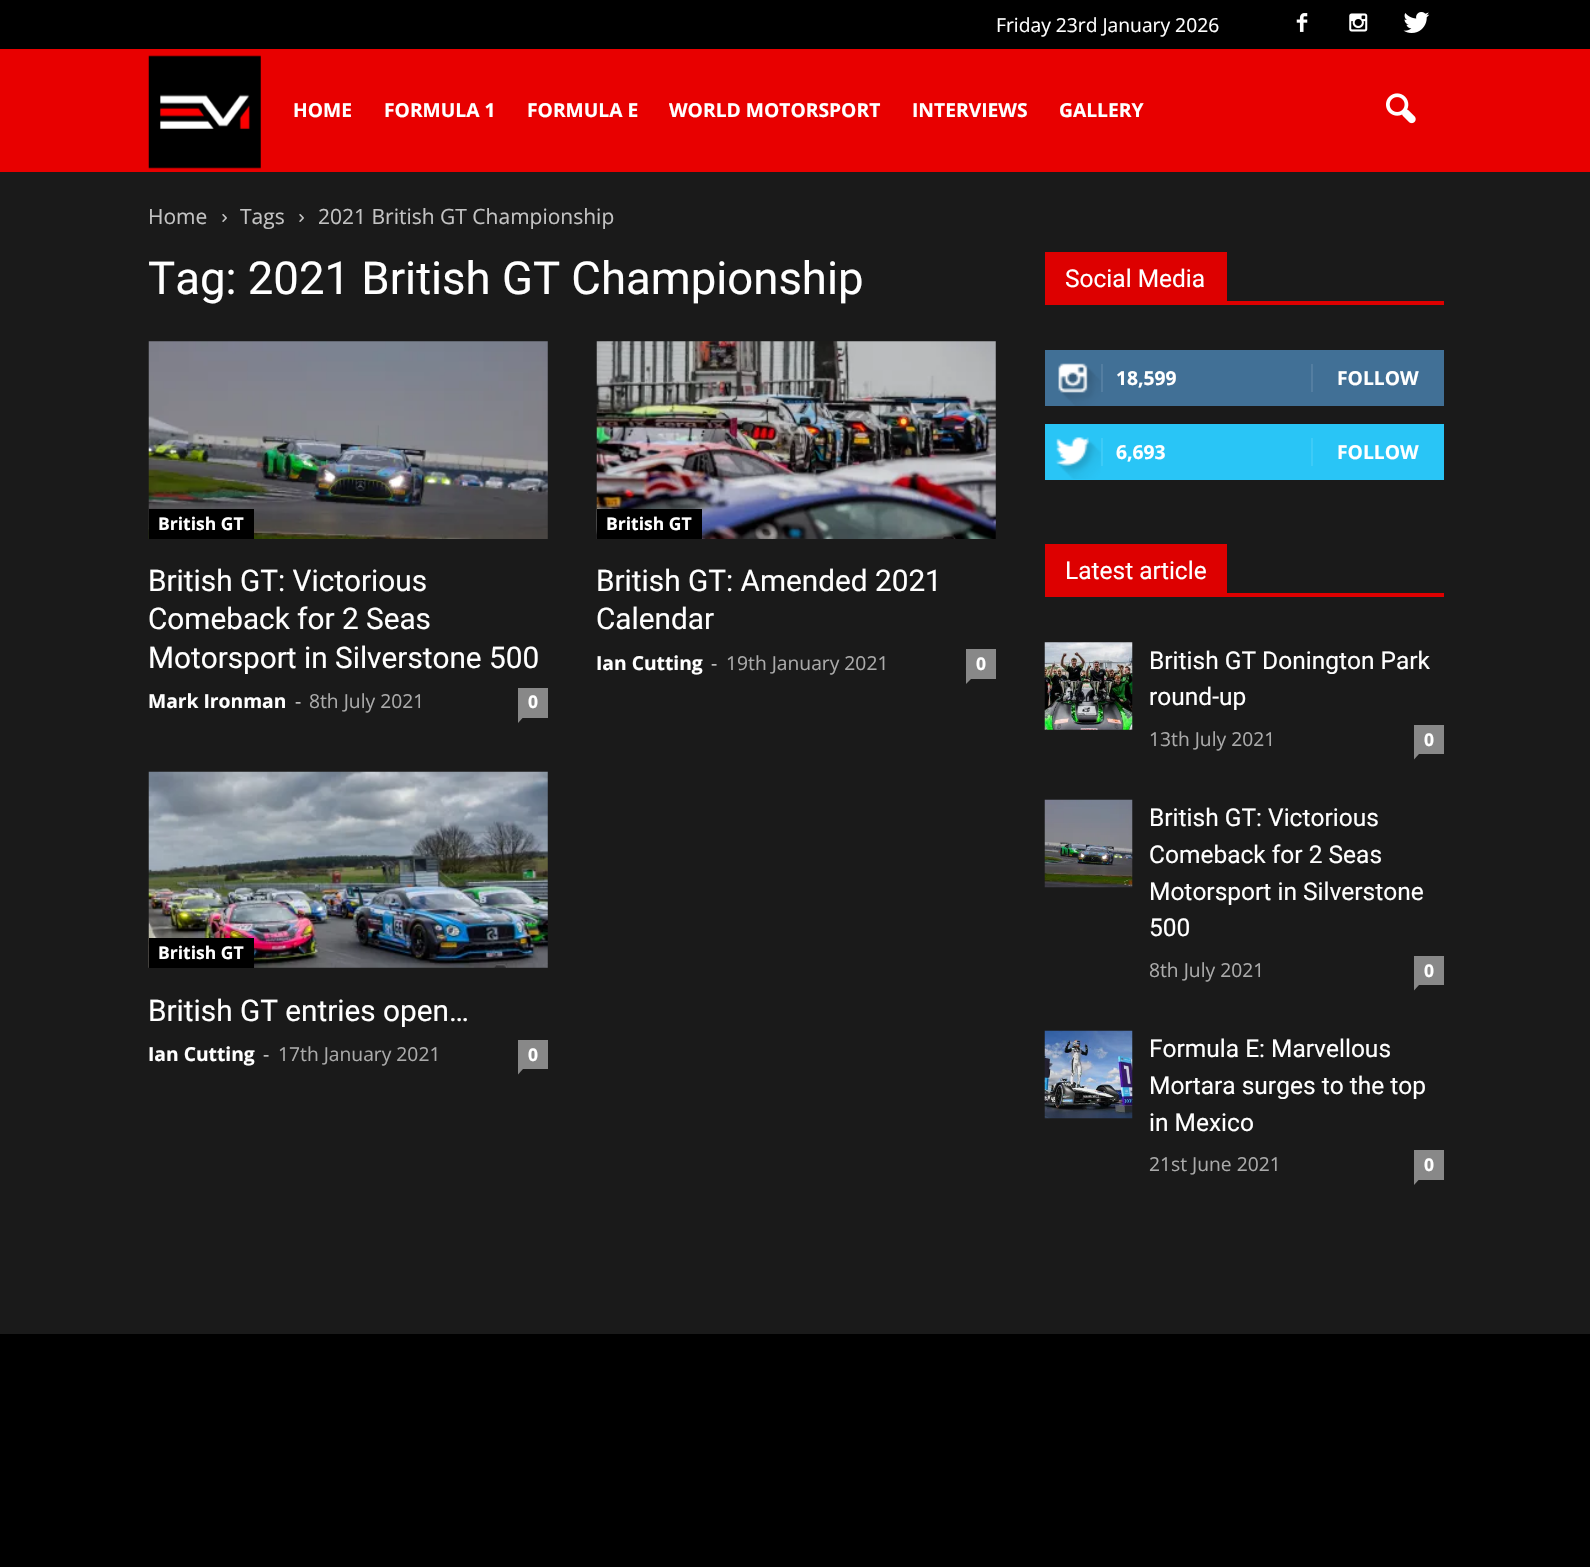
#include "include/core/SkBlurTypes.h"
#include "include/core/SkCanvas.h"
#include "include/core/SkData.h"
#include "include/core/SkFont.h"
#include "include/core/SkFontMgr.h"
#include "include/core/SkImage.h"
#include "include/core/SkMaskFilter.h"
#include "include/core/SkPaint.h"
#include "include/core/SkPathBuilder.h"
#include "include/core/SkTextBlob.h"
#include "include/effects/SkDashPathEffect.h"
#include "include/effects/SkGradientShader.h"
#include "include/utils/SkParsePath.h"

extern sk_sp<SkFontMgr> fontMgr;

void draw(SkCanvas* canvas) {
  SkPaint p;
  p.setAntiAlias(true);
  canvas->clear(SkColorSetRGB(26, 26, 26));
  p.setColor(SK_ColorBLACK);
  canvas->drawRect(SkRect::MakeLTRB(0, 0, 1590, 49), p);
  canvas->drawImageRect(SkImages::DeferredFromEncodedData(SkData::MakeFromFileName("images/1.png")), SkRect::MakeLTRB(1296, 13, 1308, 32), SkSamplingOptions());
  canvas->drawImageRect(SkImages::DeferredFromEncodedData(SkData::MakeFromFileName("images/2.png")), SkRect::MakeLTRB(1349, 13, 1368, 32), SkSamplingOptions());
  canvas->drawImageRect(SkImages::DeferredFromEncodedData(SkData::MakeFromFileName("images/3.png")), SkRect::MakeLTRB(1403, 12, 1430, 33), SkSamplingOptions());
  p.setColor(SkColorSetRGB(232, 0, 0));
  canvas->drawRect(SkRect::MakeLTRB(0, 49, 1590, 172), p);
  canvas->drawImageRect(SkImages::DeferredFromEncodedData(SkData::MakeFromFileName("images/4.png")), SkRect::MakeLTRB(148, 55, 261, 169), SkSamplingOptions());
  canvas->drawImageRect(SkImages::DeferredFromEncodedData(SkData::MakeFromFileName("images/5.png")), SkRect::MakeLTRB(1386, 93, 1416, 124), SkSamplingOptions());
  canvas->drawImageRect(SkImages::DeferredFromEncodedData(SkData::MakeFromFileName("images/6.png")), SkRect::MakeLTRB(222, 214, 227, 222), SkSamplingOptions());
  canvas->drawImageRect(SkImages::DeferredFromEncodedData(SkData::MakeFromFileName("images/6.png")), SkRect::MakeLTRB(299, 214, 304, 222), SkSamplingOptions());
  canvas->drawImageRect(SkImages::DeferredFromEncodedData(SkData::MakeFromFileName("images/7.png")), SkRect::MakeLTRB(148, 341, 548, 539), SkSamplingOptions());
  p.setColor(SK_ColorBLACK);
  canvas->drawRect(SkRect::MakeLTRB(149, 509, 254, 539), p);
  p.setColor(SkColorSetRGB(136, 136, 136));
  canvas->drawRect(SkRect::MakeLTRB(518, 688, 548, 718), p);
  canvas->drawPath(SkPathBuilder().moveTo(518, 717.5f).lineTo(523, 717.5f).lineTo(518, 723).close().detach(), p);
  canvas->drawImageRect(SkImages::DeferredFromEncodedData(SkData::MakeFromFileName("images/8.png")), SkRect::MakeLTRB(596, 341, 996, 539), SkSamplingOptions());
  p.setColor(SK_ColorBLACK);
  canvas->drawRect(SkRect::MakeLTRB(597, 509, 702, 539), p);
  p.setColor(SkColorSetRGB(136, 136, 136));
  canvas->drawRect(SkRect::MakeLTRB(966, 649, 996, 679), p);
  canvas->drawPath(SkPathBuilder().moveTo(966, 679).lineTo(971, 679).lineTo(966, 684).close().detach(), p);
  canvas->drawImageRect(SkImages::DeferredFromEncodedData(SkData::MakeFromFileName("images/9.png")), SkRect::MakeLTRB(148, 771, 548, 968), SkSamplingOptions());
  p.setColor(SK_ColorBLACK);
  canvas->drawRect(SkRect::MakeLTRB(149, 938, 254, 968), p);
  p.setColor(SkColorSetRGB(136, 136, 136));
  canvas->drawRect(SkRect::MakeLTRB(518, 1040, 548, 1069), p);
  canvas->drawPath(SkPathBuilder().moveTo(518, 1069).lineTo(523, 1069).lineTo(518, 1074.5f).close().detach(), p);
  p.setColor(SkColorSetRGB(221, 0, 0));
  canvas->drawRect(SkRect::MakeLTRB(1045, 301, 1444, 305), p);
  canvas->drawRect(SkRect::MakeLTRB(1045, 252, 1227, 301), p);
  p.setColor(SkColorSetRGB(65, 112, 150));
  canvas->drawRect(SkRect::MakeLTRB(1045, 350, 1444, 406), p);
  canvas->drawImageRect(SkImages::DeferredFromEncodedData(SkData::MakeFromFileName("images/10.png")), SkRect::MakeLTRB(1058, 363, 1101, 406), SkSamplingOptions());
  p.setColor(SkColorSetRGB(84, 126, 161));
  canvas->drawRect(SkRect::MakeLTRB(1101, 364, 1103, 392), p);
  canvas->drawRect(SkRect::MakeLTRB(1311, 364, 1313, 392), p);
  p.setColor(SkColorSetRGB(41, 197, 246));
  canvas->drawRect(SkRect::MakeLTRB(1045, 424, 1444, 480), p);
  canvas->drawImageRect(SkImages::DeferredFromEncodedData(SkData::MakeFromFileName("images/11.png")), SkRect::MakeLTRB(1055, 437, 1101, 479), SkSamplingOptions());
  p.setColor(SkColorSetRGB(62, 203, 247));
  canvas->drawRect(SkRect::MakeLTRB(1101, 438, 1103, 466), p);
  canvas->drawRect(SkRect::MakeLTRB(1311, 438, 1313, 466), p);
  p.setColor(SkColorSetRGB(221, 0, 0));
  canvas->drawRect(SkRect::MakeLTRB(1045, 593, 1444, 597), p);
  canvas->drawRect(SkRect::MakeLTRB(1045, 544, 1227, 593), p);
  canvas->drawImageRect(SkImages::DeferredFromEncodedData(SkData::MakeFromFileName("images/12.png")), SkRect::MakeLTRB(1044, 642, 1133, 730), SkSamplingOptions());
  p.setColor(SkColorSetRGB(136, 136, 136));
  canvas->drawRect(SkRect::MakeLTRB(1414, 725, 1444, 754), p);
  canvas->drawPath(SkPathBuilder().moveTo(1414, 754).lineTo(1419, 754).lineTo(1414, 759.5f).close().detach(), p);
  canvas->drawImageRect(SkImages::DeferredFromEncodedData(SkData::MakeFromFileName("images/13.png")), SkRect::MakeLTRB(1044, 799, 1133, 888), SkSamplingOptions());
  canvas->drawRect(SkRect::MakeLTRB(1414, 956, 1444, 985), p);
  canvas->drawPath(SkPathBuilder().moveTo(1414, 985).lineTo(1419, 985).lineTo(1414, 990.5f).close().detach(), p);
  canvas->drawImageRect(SkImages::DeferredFromEncodedData(SkData::MakeFromFileName("images/14.png")), SkRect::MakeLTRB(1044, 1030, 1133, 1119), SkSamplingOptions());
  canvas->drawRect(SkRect::MakeLTRB(1414, 1150, 1444, 1180), p);
  canvas->drawPath(SkPathBuilder().moveTo(1414, 1179.5f).lineTo(1419, 1179.5f).lineTo(1414, 1185).close().detach(), p);
  p.setColor(SK_ColorBLACK);
  canvas->drawRect(SkRect::MakeLTRB(0, 1334, 1590, 1567), p);
  SkFont font1(fontMgr->matchFamilyStyle("Open Sans", SkFontStyle::Normal()), 19.25f);
  font1.setSubpixel(true);
  p.setColor(SK_ColorWHITE);
  canvas->drawString("Friday 23rd January 2026", 996, 32, font1, p);
  SkFont font2(fontMgr->matchFamilyStyle("Open Sans", SkFontStyle::Bold()), 19.25f);
  font2.setSubpixel(true);
  canvas->drawString("HOME", 293, 117, font2, p);
  canvas->drawString("FORMULA 1", 384, 117, font2, p);
  canvas->drawString("FORMULA E", 527, 117, font2, p);
  canvas->drawString("WORLD MOTORSPORT", 669, 117, font2, p);
  canvas->drawString("INTERVIEWS", 912, 117, font2, p);
  canvas->drawString("GALLERY", 1059, 117, font2, p);
  SkFont font3(fontMgr->matchFamilyStyle("Open Sans", SkFontStyle::Normal()), 21);
  font3.setSubpixel(true);
  p.setColor(SkColorSetRGB(195, 195, 195));
  canvas->drawString("Home", 148, 224, font3, p);
  canvas->drawString("Tags", 240, 224, font3, p);
  canvas->drawString("2021 British GT Championship", 318, 224, font3, p);
  SkFont font4(fontMgr->matchFamilyStyle("Roboto", SkFontStyle::Normal()), 45.5f);
  font4.setSubpixel(true);
  p.setColor(SK_ColorWHITE);
  canvas->drawString("Tag: 2021 British GT Championship", 148, 294, font4, p);
  SkFont font5(fontMgr->matchFamilyStyle("Open Sans", SkFontStyle::Bold()), 17.5f);
  font5.setSubpixel(true);
  canvas->drawString("British GT", 158, 530, font5, p);
  SkFont font6(fontMgr->matchFamilyStyle("Roboto", SkFontStyle::Normal()), 29.75f);
  font6.setSubpixel(true);
  canvas->drawString("British GT: Victorious", 148, 591, font6, p);
  canvas->drawString("Comeback for 2 Seas", 148, 629, font6, p);
  canvas->drawString("Motorsport in Silverstone 500", 148, 668, font6, p);
  canvas->drawString("Mark Ironman", 148, 708, font2, p);
  p.setColor(SkColorSetRGB(204, 204, 204));
  canvas->drawString("-", 295, 708, font1, p);
  p.setColor(SkColorSetRGB(170, 170, 170));
  canvas->drawString("8th July 2021", 309, 708, font1, p);
  p.setColor(SK_ColorWHITE);
  canvas->drawString("0", 528, 708, font5, p);
  canvas->drawString("British GT", 606, 530, font5, p);
  canvas->drawString("British GT: Amended 2021", 596, 591, font6, p);
  canvas->drawString("Calendar", 596, 629, font6, p);
  canvas->drawString("Ian Cutting", 596, 670, font2, p);
  p.setColor(SkColorSetRGB(204, 204, 204));
  canvas->drawString("-", 711, 670, font1, p);
  p.setColor(SkColorSetRGB(170, 170, 170));
  canvas->drawString("19th January 2021", 726, 670, font1, p);
  p.setColor(SK_ColorWHITE);
  canvas->drawString("0", 976, 670, font5, p);
  canvas->drawString("British GT", 158, 959, font5, p);
  canvas->drawString("British GT entries open…", 148, 1021, font6, p);
  canvas->drawString("Ian Cutting", 148, 1061, font2, p);
  p.setColor(SkColorSetRGB(204, 204, 204));
  canvas->drawString("-", 263, 1061, font1, p);
  p.setColor(SkColorSetRGB(170, 170, 170));
  canvas->drawString("17th January 2021", 278, 1061, font1, p);
  p.setColor(SK_ColorWHITE);
  canvas->drawString("0", 528, 1061, font5, p);
  SkFont font7(fontMgr->matchFamilyStyle("Roboto", SkFontStyle::Normal()), 24.5f);
  font7.setSubpixel(true);
  canvas->drawString("Social Media", 1065, 287, font7, p);
  canvas->drawString("18,599", 1116, 385, font2, p);
  canvas->drawString("FOLLOW", 1337, 385, font2, p);
  canvas->drawString("6,693", 1116, 459, font2, p);
  canvas->drawString("FOLLOW", 1337, 459, font2, p);
  canvas->drawString("Latest article", 1065, 579, font7, p);
  canvas->drawString("British GT Donington Park", 1149, 669, font7, p);
  canvas->drawString("round-up", 1149, 705, font7, p);
  p.setColor(SkColorSetRGB(170, 170, 170));
  canvas->drawString("13th July 2021", 1149, 746, font1, p);
  p.setColor(SK_ColorWHITE);
  canvas->drawString("0", 1424, 746, font5, p);
  canvas->drawString("British GT: Victorious", 1149, 826, font7, p);
  canvas->drawString("Comeback for 2 Seas", 1149, 863, font7, p);
  canvas->drawString("Motorsport in Silverstone", 1149, 900, font7, p);
  canvas->drawString("500", 1149, 936, font7, p);
  p.setColor(SkColorSetRGB(170, 170, 170));
  canvas->drawString("8th July 2021", 1149, 977, font1, p);
  p.setColor(SK_ColorWHITE);
  canvas->drawString("0", 1424, 977, font5, p);
  canvas->drawString("Formula E: Marvellous", 1149, 1057, font7, p);
  canvas->drawString("Mortara surges to the top", 1149, 1094, font7, p);
  canvas->drawString("in Mexico", 1149, 1131, font7, p);
  p.setColor(SkColorSetRGB(170, 170, 170));
  canvas->drawString("21st June 2021", 1149, 1171, font1, p);
  p.setColor(SK_ColorWHITE);
  canvas->drawString("0", 1424, 1171, font5, p);
}
